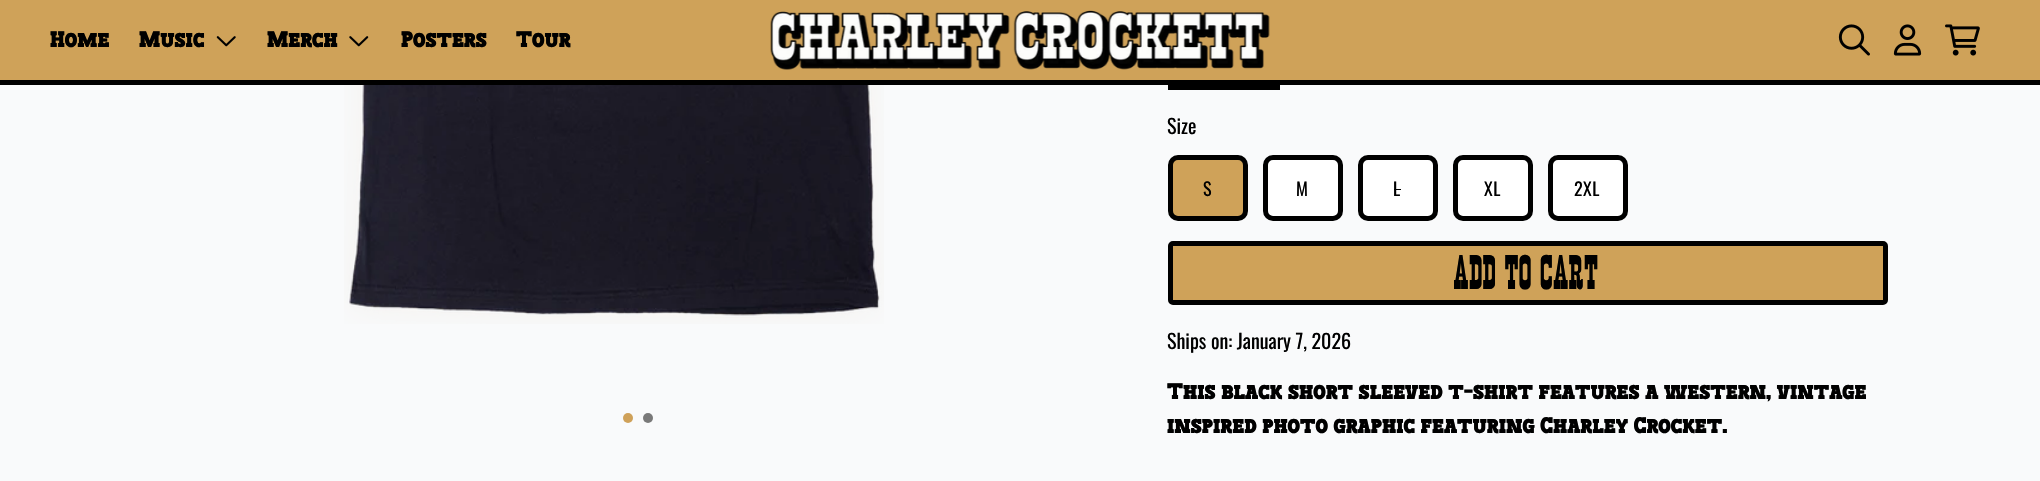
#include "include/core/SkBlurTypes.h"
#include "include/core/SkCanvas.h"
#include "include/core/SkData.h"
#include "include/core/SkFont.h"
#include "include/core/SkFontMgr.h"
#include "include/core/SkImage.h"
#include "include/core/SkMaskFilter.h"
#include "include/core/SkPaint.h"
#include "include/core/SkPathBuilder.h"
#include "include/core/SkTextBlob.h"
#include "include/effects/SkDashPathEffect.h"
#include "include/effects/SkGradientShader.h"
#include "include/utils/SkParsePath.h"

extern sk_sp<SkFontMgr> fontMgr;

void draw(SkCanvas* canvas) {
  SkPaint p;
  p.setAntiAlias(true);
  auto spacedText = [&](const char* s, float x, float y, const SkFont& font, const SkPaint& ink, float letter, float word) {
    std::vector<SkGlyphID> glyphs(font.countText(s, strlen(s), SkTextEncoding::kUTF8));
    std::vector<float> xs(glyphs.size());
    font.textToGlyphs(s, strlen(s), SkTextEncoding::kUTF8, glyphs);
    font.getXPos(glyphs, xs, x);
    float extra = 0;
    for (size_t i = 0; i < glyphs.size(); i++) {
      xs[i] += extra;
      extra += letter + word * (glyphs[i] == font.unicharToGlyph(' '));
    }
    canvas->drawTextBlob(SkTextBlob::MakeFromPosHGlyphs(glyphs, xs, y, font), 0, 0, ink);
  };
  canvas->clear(SkColorSetRGB(249, 250, 251));
  p.setStyle(SkPaint::kStroke_Style);
  p.setStrokeWidth(5);
  p.setColor(SK_ColorBLACK);
  canvas->drawRect(SkRect::MakeLTRB(1170.5f, 48.5f, 1277.5f, 87.5f), p);
  p.setStyle(SkPaint::kFill_Style);
  p.setColor(SkColorSetRGB(207, 162, 89));
  canvas->drawRect(SkRect::MakeLTRB(0, 0, 2040, 80), p);
  p.setColor(SK_ColorBLACK);
  canvas->drawRect(SkRect::MakeLTRB(0, 80, 2040, 85), p);
  canvas->drawImageRect(SkImages::DeferredFromEncodedData(SkData::MakeFromFileName("images/1.png")), SkRect::MakeLTRB(216, 36, 236, 47), SkSamplingOptions());
  canvas->drawImageRect(SkImages::DeferredFromEncodedData(SkData::MakeFromFileName("images/2.png")), SkRect::MakeLTRB(349, 36, 369, 47), SkSamplingOptions());
  canvas->drawImageRect(SkImages::DeferredFromEncodedData(SkData::MakeFromFileName("images/3.png")), SkRect::MakeLTRB(770, 10, 1270, 70), SkSamplingOptions());
  canvas->drawImageRect(SkImages::DeferredFromEncodedData(SkData::MakeFromFileName("images/4.png")), SkRect::MakeLTRB(1838, 24, 1870, 56), SkSamplingOptions());
  canvas->drawImageRect(SkImages::DeferredFromEncodedData(SkData::MakeFromFileName("images/5.png")), SkRect::MakeLTRB(1893, 24, 1922, 56), SkSamplingOptions());
  canvas->drawImageRect(SkImages::DeferredFromEncodedData(SkData::MakeFromFileName("images/6.png")), SkRect::MakeLTRB(1945, 24, 1980, 56), SkSamplingOptions());
  canvas->drawImageRect(SkImages::DeferredFromEncodedData(SkData::MakeFromFileName("images/7.png")), SkRect::MakeLTRB(344, 85, 884, 324), SkSamplingOptions());
  p.setColor(SkColorSetRGB(207, 161, 89));
  canvas->drawCircle(628, 418, 5, p);
  p.setColor(SkColorSetRGB(121, 121, 121));
  canvas->drawCircle(648, 418, 5, p);
  p.setColor(SkColorSetRGB(207, 162, 89));
  canvas->drawRoundRect(SkRect::MakeLTRB(1170.5f, 157.5f, 1245.5f, 218.5f), 7.5f, 7.5f, p);
  p.setStyle(SkPaint::kStroke_Style);
  p.setColor(SK_ColorBLACK);
  canvas->drawRoundRect(SkRect::MakeLTRB(1170.5f, 157.5f, 1245.5f, 218.5f), 7.5f, 7.5f, p);
  p.setStyle(SkPaint::kFill_Style);
  p.setColor(SK_ColorWHITE);
  canvas->drawRoundRect(SkRect::MakeLTRB(1265.5f, 157.5f, 1340.5f, 218.5f), 7.5f, 7.5f, p);
  p.setStyle(SkPaint::kStroke_Style);
  p.setColor(SK_ColorBLACK);
  canvas->drawRoundRect(SkRect::MakeLTRB(1265.5f, 157.5f, 1340.5f, 218.5f), 7.5f, 7.5f, p);
  p.setStyle(SkPaint::kFill_Style);
  p.setColor(SK_ColorWHITE);
  canvas->drawRoundRect(SkRect::MakeLTRB(1360.5f, 157.5f, 1435.5f, 218.5f), 7.5f, 7.5f, p);
  p.setStyle(SkPaint::kStroke_Style);
  p.setColor(SK_ColorBLACK);
  canvas->drawRoundRect(SkRect::MakeLTRB(1360.5f, 157.5f, 1435.5f, 218.5f), 7.5f, 7.5f, p);
  p.setStyle(SkPaint::kFill_Style);
  canvas->drawRect(SkRect::MakeLTRB(1394, 189, 1401, 190), p);
  p.setColor(SK_ColorWHITE);
  canvas->drawRoundRect(SkRect::MakeLTRB(1455.5f, 157.5f, 1530.5f, 218.5f), 7.5f, 7.5f, p);
  p.setStyle(SkPaint::kStroke_Style);
  p.setColor(SK_ColorBLACK);
  canvas->drawRoundRect(SkRect::MakeLTRB(1455.5f, 157.5f, 1530.5f, 218.5f), 7.5f, 7.5f, p);
  p.setStyle(SkPaint::kFill_Style);
  p.setColor(SK_ColorWHITE);
  canvas->drawRoundRect(SkRect::MakeLTRB(1550.5f, 157.5f, 1625.5f, 218.5f), 7.5f, 7.5f, p);
  p.setStyle(SkPaint::kStroke_Style);
  p.setColor(SK_ColorBLACK);
  canvas->drawRoundRect(SkRect::MakeLTRB(1550.5f, 157.5f, 1625.5f, 218.5f), 7.5f, 7.5f, p);
  p.setStyle(SkPaint::kFill_Style);
  p.setColor(SkColorSetRGB(207, 162, 89));
  canvas->drawRoundRect(SkRect::MakeLTRB(1170.5f, 243.5f, 1885.5f, 302.5f), 2.5f, 2.5f, p);
  p.setStyle(SkPaint::kStroke_Style);
  p.setColor(SK_ColorBLACK);
  canvas->drawRoundRect(SkRect::MakeLTRB(1170.5f, 243.5f, 1885.5f, 302.5f), 2.5f, 2.5f, p);
  SkFont font1(fontMgr->matchFamilyStyle("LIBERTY", SkFontStyle::Normal()), 22.5f);
  font1.setSubpixel(true);
  p.setStyle(SkPaint::kFill_Style);
  canvas->drawString("Home", 50, 47, font1, p);
  canvas->drawString("Music", 139, 47, font1, p);
  canvas->drawString("Merch", 267, 47, font1, p);
  canvas->drawString("Posters", 401, 47, font1, p);
  canvas->drawString("Tour", 516, 47, font1, p);
  SkFont font2(fontMgr->matchFamilyStyle("Oswald", SkFontStyle::Normal()), 20);
  font2.setSubpixel(true);
  canvas->drawString("Size", 1167, 134, font2, p);
  SkFont font3(fontMgr->matchFamilyStyle("Oswald", SkFontStyle::Normal()), 18);
  font3.setSubpixel(true);
  spacedText("S", 1203, 196, font3, p, 0.5f, 0);
  spacedText("M", 1296, 196, font3, p, 0.5f, 0);
  spacedText("L", 1393, 196, font3, p, 0.5f, 0);
  spacedText("XL", 1484, 196, font3, p, 0.5f, 0);
  spacedText("2XL", 1574, 196, font3, p, 0.5f, 0);
  SkFont font4(fontMgr->matchFamilyStyle("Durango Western", SkFontStyle::Bold()), 28.75f);
  font4.setSubpixel(true);
  spacedText("ADD TO CART", 1454, 289, font4, p, 1.25f, 0);
  canvas->drawString("Ships on: January 7, 2026", 1167, 349, font2, p);
  canvas->drawString("This black short sleeved t-shirt features a western, vintage", 1167, 399, font1, p);
  canvas->drawString("inspired photo graphic featuring Charley Crocket.", 1167, 433, font1, p);
}
